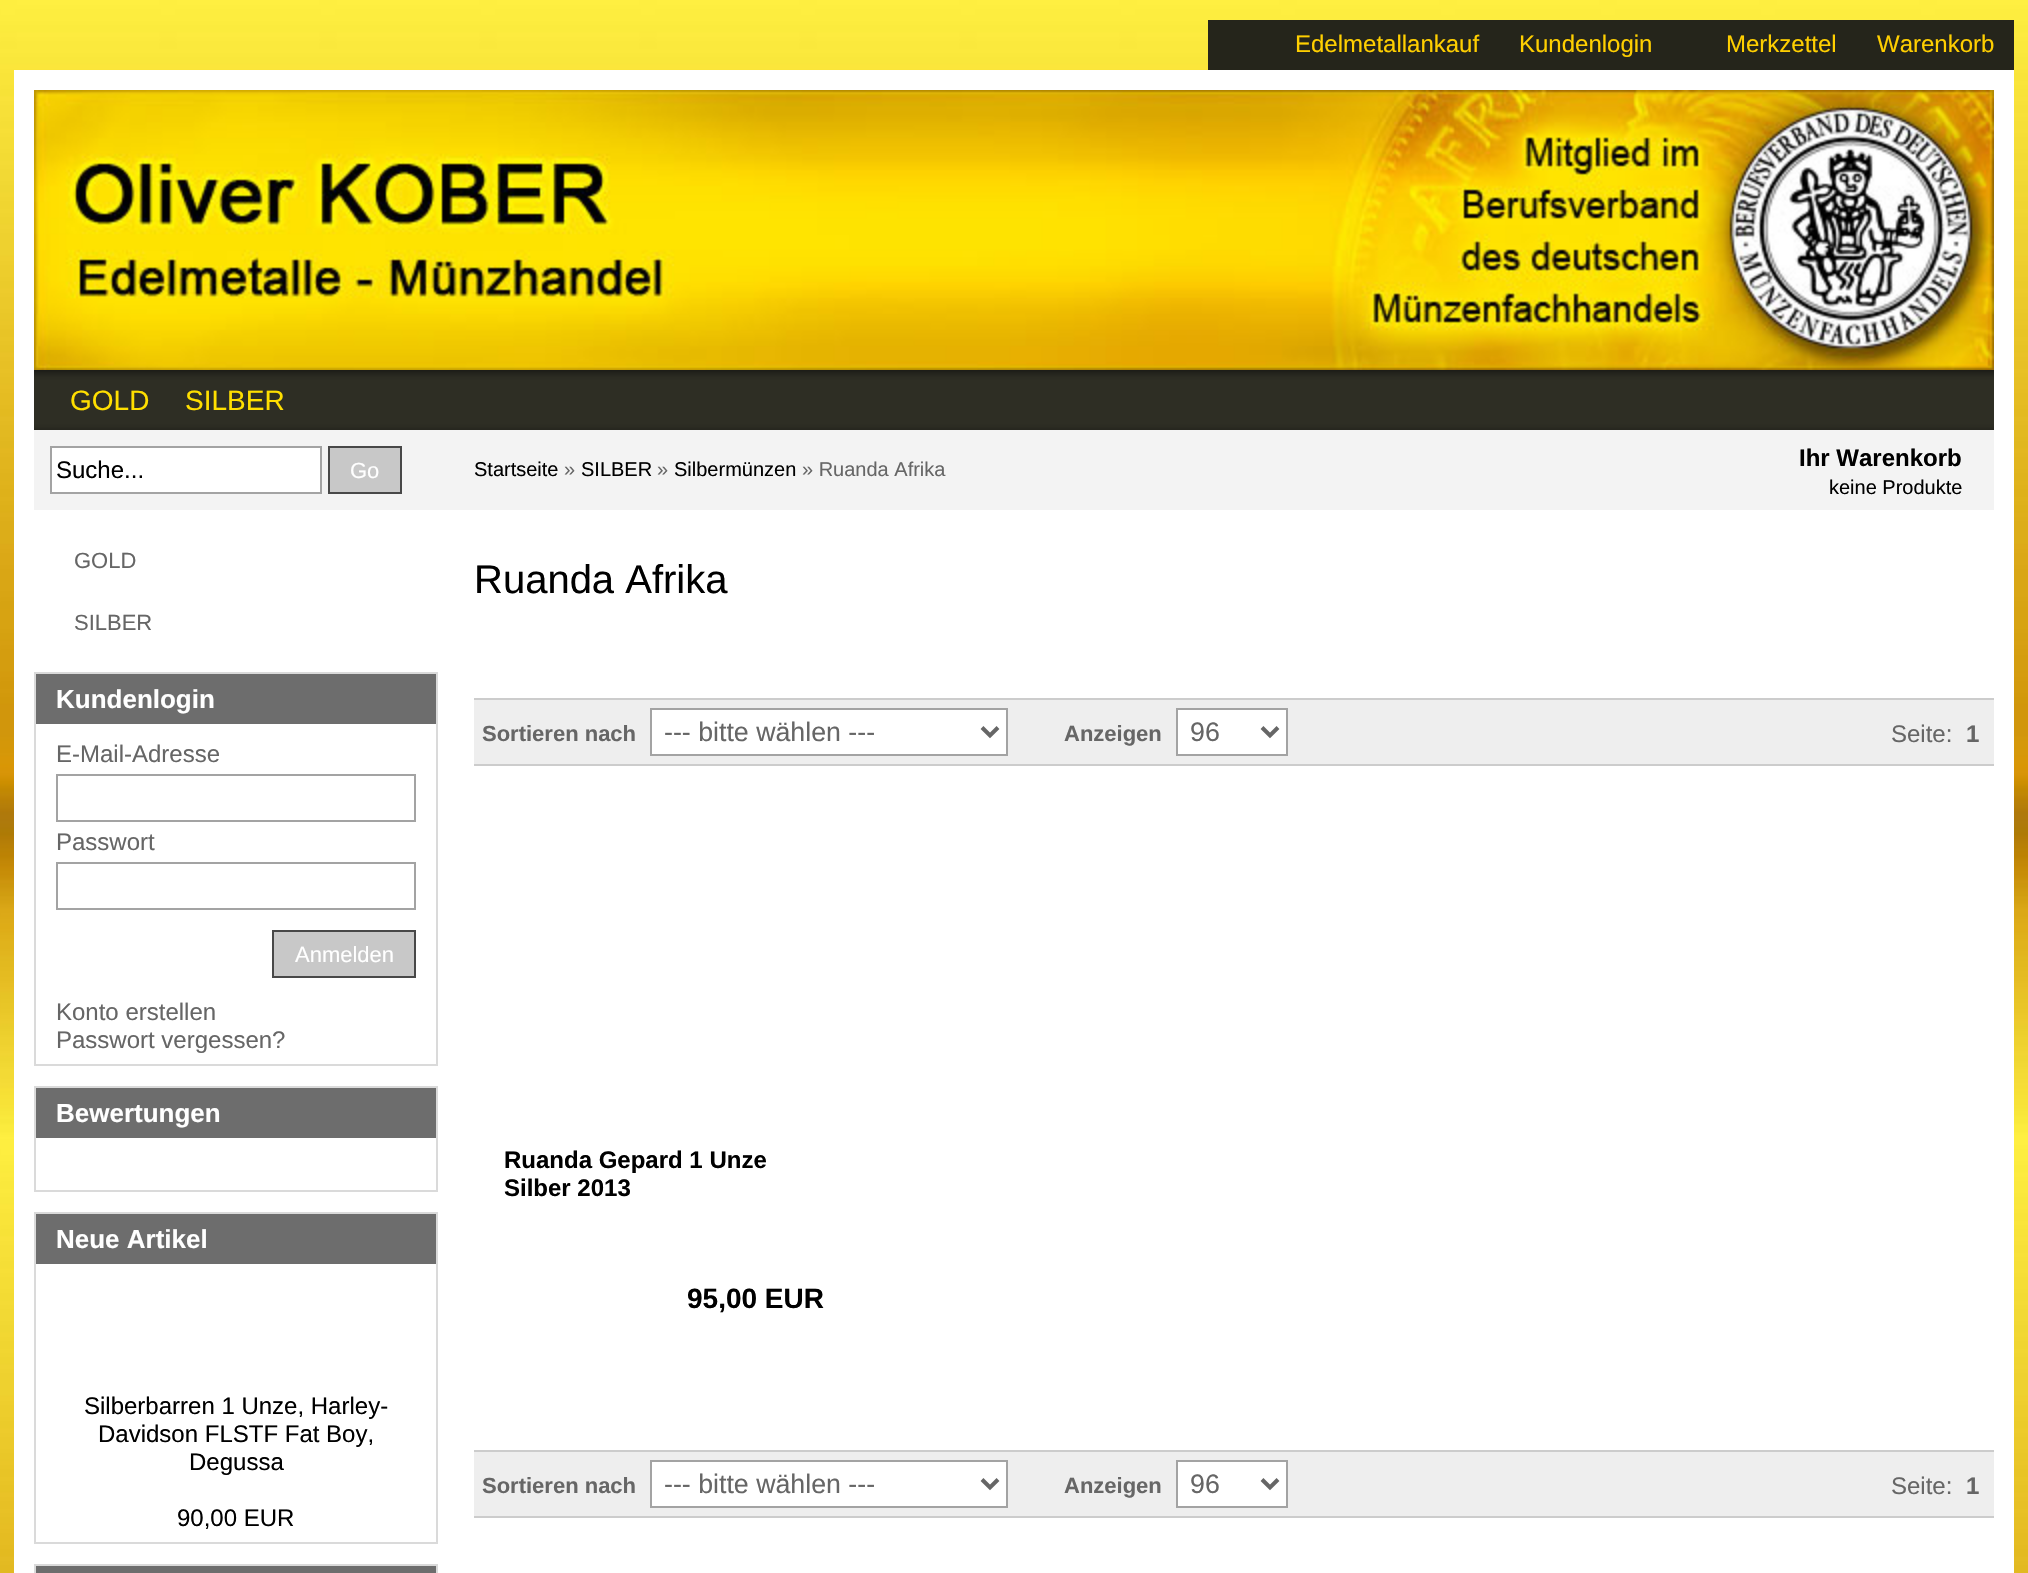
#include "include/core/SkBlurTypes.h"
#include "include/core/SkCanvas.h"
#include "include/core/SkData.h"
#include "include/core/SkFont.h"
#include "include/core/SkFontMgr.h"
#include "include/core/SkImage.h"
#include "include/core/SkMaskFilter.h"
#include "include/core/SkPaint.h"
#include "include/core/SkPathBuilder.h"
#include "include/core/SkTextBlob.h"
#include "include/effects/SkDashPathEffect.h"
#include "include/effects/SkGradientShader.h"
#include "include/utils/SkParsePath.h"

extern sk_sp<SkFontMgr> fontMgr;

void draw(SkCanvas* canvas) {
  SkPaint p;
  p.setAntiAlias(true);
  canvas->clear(SK_ColorWHITE);
  canvas->drawImageRect(SkImages::DeferredFromEncodedData(SkData::MakeFromFileName("images/1.png")), SkRect::MakeLTRB(0, 0, 2028, 1573), SkSamplingOptions());
  p.setColor(SkColorSetRGB(37, 37, 27));
  canvas->drawRect(SkRect::MakeLTRB(1208, 20, 2014, 70), p);
  p.setColor(SK_ColorWHITE);
  canvas->drawRect(SkRect::MakeLTRB(14, 70, 2014, 1573), p);
  canvas->drawImageRect(SkImages::DeferredFromEncodedData(SkData::MakeFromFileName("images/2.png")), SkRect::MakeLTRB(34, 90, 1994, 370), SkSamplingOptions());
  canvas->drawImageRect(SkImages::DeferredFromEncodedData(SkData::MakeFromFileName("images/3.png")), SkRect::MakeLTRB(34, 370, 1994, 430), SkSamplingOptions());
  p.setColor(SkColorSetRGB(243, 243, 243));
  canvas->drawRect(SkRect::MakeLTRB(34, 430, 1994, 510), p);
  p.setColor(SK_ColorWHITE);
  canvas->drawRect(SkRect::MakeLTRB(51, 447, 321, 493), p);
  p.setStyle(SkPaint::kStroke_Style);
  p.setStrokeWidth(2);
  p.setColor(SkColorSetRGB(163, 163, 163));
  canvas->drawRect(SkRect::MakeLTRB(51, 447, 321, 493), p);
  p.setStyle(SkPaint::kFill_Style);
  p.setColor(SkColorSetRGB(200, 200, 200));
  canvas->drawRect(SkRect::MakeLTRB(329, 447, 401, 493), p);
  p.setStyle(SkPaint::kStroke_Style);
  p.setColor(SkColorSetRGB(72, 72, 72));
  canvas->drawRect(SkRect::MakeLTRB(329, 447, 401, 493), p);
  p.setColor(SkColorSetRGB(218, 218, 218));
  canvas->drawRect(SkRect::MakeLTRB(35, 673, 437, 1065), p);
  p.setStyle(SkPaint::kFill_Style);
  p.setColor(SkColorSetRGB(109, 109, 109));
  canvas->drawRect(SkRect::MakeLTRB(36, 674, 436, 724), p);
  p.setStyle(SkPaint::kStroke_Style);
  p.setColor(SkColorSetRGB(163, 163, 163));
  canvas->drawRect(SkRect::MakeLTRB(57, 775, 415, 821), p);
  canvas->drawRect(SkRect::MakeLTRB(57, 863, 415, 909), p);
  p.setStyle(SkPaint::kFill_Style);
  p.setColor(SkColorSetRGB(200, 200, 200));
  canvas->drawRect(SkRect::MakeLTRB(273, 931, 415, 977), p);
  p.setStyle(SkPaint::kStroke_Style);
  p.setColor(SkColorSetRGB(72, 72, 72));
  canvas->drawRect(SkRect::MakeLTRB(273, 931, 415, 977), p);
  p.setColor(SkColorSetRGB(218, 218, 218));
  canvas->drawRect(SkRect::MakeLTRB(35, 1087, 437, 1191), p);
  p.setStyle(SkPaint::kFill_Style);
  p.setColor(SkColorSetRGB(109, 109, 109));
  canvas->drawRect(SkRect::MakeLTRB(36, 1088, 436, 1138), p);
  p.setStyle(SkPaint::kStroke_Style);
  p.setColor(SkColorSetRGB(218, 218, 218));
  canvas->drawRect(SkRect::MakeLTRB(35, 1213, 437, 1543), p);
  p.setStyle(SkPaint::kFill_Style);
  p.setColor(SkColorSetRGB(109, 109, 109));
  canvas->drawRect(SkRect::MakeLTRB(36, 1214, 436, 1264), p);
  p.setStyle(SkPaint::kStroke_Style);
  p.setColor(SkColorSetRGB(218, 218, 218));
  canvas->drawRect(SkRect::MakeLTRB(35, 1565, 437, 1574), p);
  p.setStyle(SkPaint::kFill_Style);
  p.setColor(SkColorSetRGB(109, 109, 109));
  canvas->drawRect(SkRect::MakeLTRB(36, 1566, 436, 1573), p);
  p.setColor(SkColorSetRGB(238, 238, 238));
  canvas->drawRect(SkRect::MakeLTRB(474, 700, 1994, 764), p);
  p.setColor(SkColorSetRGB(204, 204, 204));
  canvas->drawRect(SkRect::MakeLTRB(474, 698, 1994, 700), p);
  canvas->drawRect(SkRect::MakeLTRB(474, 764, 1994, 766), p);
  p.setColor(SK_ColorWHITE);
  canvas->drawRect(SkRect::MakeLTRB(651, 709, 1007, 755), p);
  p.setStyle(SkPaint::kStroke_Style);
  p.setColor(SkColorSetRGB(163, 163, 163));
  canvas->drawRect(SkRect::MakeLTRB(651, 709, 1007, 755), p);
  p.setStrokeWidth(4);
  p.setColor(SkColorSetRGB(102, 102, 102));
  canvas->drawPath(SkPathBuilder().moveTo(982, 727.5f).lineTo(990, 735.5f).lineTo(998, 727.5f).detach(), p);
  p.setStyle(SkPaint::kFill_Style);
  p.setColor(SK_ColorWHITE);
  canvas->drawRect(SkRect::MakeLTRB(1177, 709, 1287, 755), p);
  p.setStyle(SkPaint::kStroke_Style);
  p.setStrokeWidth(2);
  p.setColor(SkColorSetRGB(163, 163, 163));
  canvas->drawRect(SkRect::MakeLTRB(1177, 709, 1287, 755), p);
  p.setStrokeWidth(4);
  p.setColor(SkColorSetRGB(102, 102, 102));
  canvas->drawPath(SkPathBuilder().moveTo(1262, 727.5f).lineTo(1270, 735.5f).lineTo(1278, 727.5f).detach(), p);
  p.setStyle(SkPaint::kFill_Style);
  p.setColor(SkColorSetRGB(238, 238, 238));
  canvas->drawRect(SkRect::MakeLTRB(474, 1452, 1994, 1516), p);
  p.setColor(SkColorSetRGB(204, 204, 204));
  canvas->drawRect(SkRect::MakeLTRB(474, 1450, 1994, 1452), p);
  canvas->drawRect(SkRect::MakeLTRB(474, 1516, 1994, 1518), p);
  p.setColor(SK_ColorWHITE);
  canvas->drawRect(SkRect::MakeLTRB(651, 1461, 1007, 1507), p);
  p.setStyle(SkPaint::kStroke_Style);
  p.setStrokeWidth(2);
  p.setColor(SkColorSetRGB(163, 163, 163));
  canvas->drawRect(SkRect::MakeLTRB(651, 1461, 1007, 1507), p);
  p.setStrokeWidth(4);
  p.setColor(SkColorSetRGB(102, 102, 102));
  canvas->drawPath(SkPathBuilder().moveTo(982, 1479.5f).lineTo(990, 1487.5f).lineTo(998, 1479.5f).detach(), p);
  p.setStyle(SkPaint::kFill_Style);
  p.setColor(SK_ColorWHITE);
  canvas->drawRect(SkRect::MakeLTRB(1177, 1461, 1287, 1507), p);
  p.setStyle(SkPaint::kStroke_Style);
  p.setStrokeWidth(2);
  p.setColor(SkColorSetRGB(163, 163, 163));
  canvas->drawRect(SkRect::MakeLTRB(1177, 1461, 1287, 1507), p);
  p.setStrokeWidth(4);
  p.setColor(SkColorSetRGB(102, 102, 102));
  canvas->drawPath(SkPathBuilder().moveTo(1262, 1479.5f).lineTo(1270, 1487.5f).lineTo(1278, 1479.5f).detach(), p);
  SkFont font1(fontMgr->matchFamilyStyle("Liberation Sans", SkFontStyle::Normal()), 24);
  font1.setSubpixel(true);
  p.setStyle(SkPaint::kFill_Style);
  p.setColor(SkColorSetRGB(255, 207, 0));
  canvas->drawString("Edelmetallankauf", 1295, 52, font1, p);
  canvas->drawString("Kundenlogin", 1519, 52, font1, p);
  canvas->drawString("Merkzettel", 1726, 52, font1, p);
  canvas->drawString("Warenkorb", 1877, 52, font1, p);
  SkFont font2(fontMgr->matchFamilyStyle("Liberation Sans", SkFontStyle::Normal()), 28);
  font2.setSubpixel(true);
  p.setColor(SkColorSetRGB(255, 223, 0));
  canvas->drawString("GOLD", 70, 410, font2, p);
  canvas->drawString("SILBER", 185, 410, font2, p);
  p.setColor(SK_ColorBLACK);
  canvas->drawString("Suche...", 56, 478, font1, p);
  SkFont font3(fontMgr->matchFamilyStyle("Liberation Sans", SkFontStyle::Normal()), 22);
  font3.setSubpixel(true);
  p.setColor(SK_ColorWHITE);
  canvas->drawString("Go", 350, 478, font3, p);
  SkFont font4(fontMgr->matchFamilyStyle("Liberation Sans", SkFontStyle::Normal()), 20);
  font4.setSubpixel(true);
  p.setColor(SK_ColorBLACK);
  canvas->drawString("Startseite", 474, 476, font4, p);
  p.setColor(SkColorSetRGB(102, 102, 102));
  canvas->drawString("»", 564, 476, font4, p);
  p.setColor(SK_ColorBLACK);
  canvas->drawString("SILBER", 581, 476, font4, p);
  p.setColor(SkColorSetRGB(102, 102, 102));
  canvas->drawString("»", 657, 476, font4, p);
  p.setColor(SK_ColorBLACK);
  canvas->drawString("Silbermünzen", 674, 476, font4, p);
  p.setColor(SkColorSetRGB(102, 102, 102));
  canvas->drawString("» Ruanda Afrika", 802, 476, font4, p);
  SkFont font5(fontMgr->matchFamilyStyle("Liberation Sans", SkFontStyle::Bold()), 24);
  font5.setSubpixel(true);
  p.setColor(SK_ColorBLACK);
  canvas->drawString("Ihr Warenkorb", 1799, 466, font5, p);
  canvas->drawString("keine Produkte", 1829, 494, font4, p);
  p.setColor(SkColorSetRGB(102, 102, 102));
  canvas->drawString("GOLD", 74, 568, font3, p);
  canvas->drawString("SILBER", 74, 630, font3, p);
  SkFont font6(fontMgr->matchFamilyStyle("Liberation Sans", SkFontStyle::Bold()), 26);
  font6.setSubpixel(true);
  p.setColor(SK_ColorWHITE);
  canvas->drawString("Kundenlogin", 56, 708, font6, p);
  p.setColor(SkColorSetRGB(102, 102, 102));
  canvas->drawString("E-Mail-Adresse", 56, 762, font1, p);
  canvas->drawString("Passwort", 56, 850, font1, p);
  p.setColor(SK_ColorWHITE);
  canvas->drawString("Anmelden", 295, 962, font3, p);
  p.setColor(SkColorSetRGB(102, 102, 102));
  canvas->drawString("Konto erstellen", 56, 1020, font1, p);
  canvas->drawString("Passwort vergessen?", 56, 1048, font1, p);
  p.setColor(SK_ColorWHITE);
  canvas->drawString("Bewertungen", 56, 1122, font6, p);
  canvas->drawString("Neue Artikel", 56, 1248, font6, p);
  p.setColor(SK_ColorBLACK);
  canvas->drawString("Silberbarren 1 Unze, Harley-", 84, 1414, font1, p);
  canvas->drawString("Davidson FLSTF Fat Boy,", 98, 1442, font1, p);
  canvas->drawString("Degussa", 189, 1470, font1, p);
  canvas->drawString("90,00 EUR", 177, 1526, font1, p);
  SkFont font7(fontMgr->matchFamilyStyle("Liberation Sans", SkFontStyle::Normal()), 40);
  font7.setSubpixel(true);
  canvas->drawString("Ruanda Afrika", 474, 593, font7, p);
  SkFont font8(fontMgr->matchFamilyStyle("Liberation Sans", SkFontStyle::Bold()), 22);
  font8.setSubpixel(true);
  p.setColor(SkColorSetRGB(102, 102, 102));
  canvas->drawString("Sortieren nach", 482, 741, font8, p);
  SkFont font9(fontMgr->matchFamilyStyle("Liberation Sans", SkFontStyle::Normal()), 26.75f);
  font9.setSubpixel(true);
  canvas->drawString("--- bitte wählen ---", 664, 741, font9, p);
  canvas->drawString("Anzeigen", 1064, 741, font8, p);
  canvas->drawString("96", 1190, 741, font9, p);
  canvas->drawString("Seite:", 1891, 742, font1, p);
  canvas->drawString("1", 1966, 742, font5, p);
  p.setColor(SK_ColorBLACK);
  canvas->drawString("Ruanda Gepard 1 Unze", 504, 1168, font5, p);
  canvas->drawString("Silber 2013", 504, 1196, font5, p);
  SkFont font10(fontMgr->matchFamilyStyle("Liberation Sans", SkFontStyle::Bold()), 28);
  font10.setSubpixel(true);
  canvas->drawString("95,00 EUR", 687, 1308, font10, p);
  p.setColor(SkColorSetRGB(102, 102, 102));
  canvas->drawString("Sortieren nach", 482, 1493, font8, p);
  canvas->drawString("--- bitte wählen ---", 664, 1493, font9, p);
  canvas->drawString("Anzeigen", 1064, 1493, font8, p);
  canvas->drawString("96", 1190, 1493, font9, p);
  canvas->drawString("Seite:", 1891, 1494, font1, p);
  canvas->drawString("1", 1966, 1494, font5, p);
}
